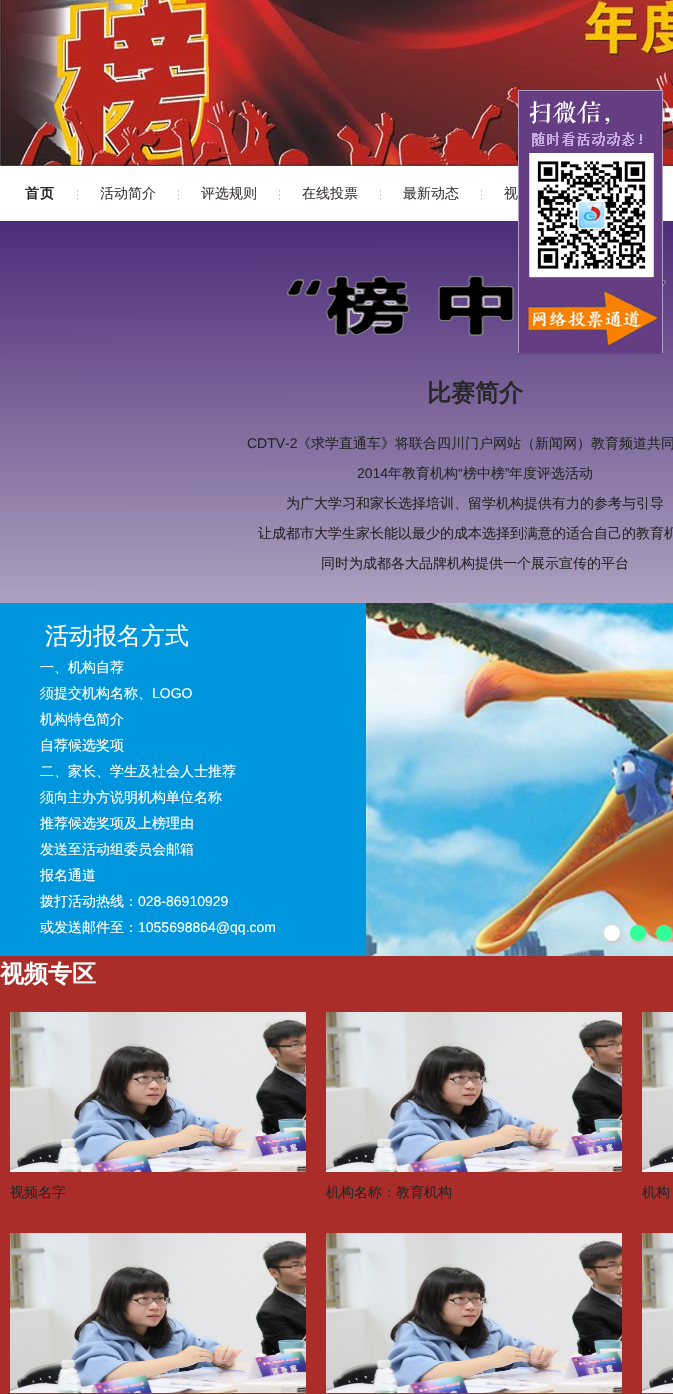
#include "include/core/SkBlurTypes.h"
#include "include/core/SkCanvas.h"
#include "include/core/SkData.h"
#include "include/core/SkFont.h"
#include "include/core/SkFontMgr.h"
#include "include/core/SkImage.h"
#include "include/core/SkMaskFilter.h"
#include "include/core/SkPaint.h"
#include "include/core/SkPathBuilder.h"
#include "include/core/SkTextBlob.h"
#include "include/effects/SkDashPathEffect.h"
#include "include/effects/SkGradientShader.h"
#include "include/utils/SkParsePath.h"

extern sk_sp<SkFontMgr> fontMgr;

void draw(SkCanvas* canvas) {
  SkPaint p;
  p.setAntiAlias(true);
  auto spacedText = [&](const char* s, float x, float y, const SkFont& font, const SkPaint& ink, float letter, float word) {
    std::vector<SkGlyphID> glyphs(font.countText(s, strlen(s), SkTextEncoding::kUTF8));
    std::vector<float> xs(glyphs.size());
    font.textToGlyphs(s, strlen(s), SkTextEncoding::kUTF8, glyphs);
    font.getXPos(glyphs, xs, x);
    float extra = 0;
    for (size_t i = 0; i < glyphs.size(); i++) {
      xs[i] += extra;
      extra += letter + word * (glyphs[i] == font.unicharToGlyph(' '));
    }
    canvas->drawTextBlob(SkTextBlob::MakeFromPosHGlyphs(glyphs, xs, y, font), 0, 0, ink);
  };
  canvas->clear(SK_ColorWHITE);
  canvas->drawImageRect(SkImages::DeferredFromEncodedData(SkData::MakeFromFileName("images/1.png")), SkRect::MakeLTRB(0, 0, 673, 166), SkSamplingOptions());
  canvas->drawImageRect(SkImages::DeferredFromEncodedData(SkData::MakeFromFileName("images/2.png")), SkRect::MakeLTRB(77, 190, 78, 200), SkSamplingOptions());
  canvas->drawImageRect(SkImages::DeferredFromEncodedData(SkData::MakeFromFileName("images/2.png")), SkRect::MakeLTRB(178, 190, 179, 200), SkSamplingOptions());
  canvas->drawImageRect(SkImages::DeferredFromEncodedData(SkData::MakeFromFileName("images/2.png")), SkRect::MakeLTRB(279, 190, 280, 200), SkSamplingOptions());
  canvas->drawImageRect(SkImages::DeferredFromEncodedData(SkData::MakeFromFileName("images/2.png")), SkRect::MakeLTRB(380, 190, 381, 200), SkSamplingOptions());
  canvas->drawImageRect(SkImages::DeferredFromEncodedData(SkData::MakeFromFileName("images/2.png")), SkRect::MakeLTRB(481, 190, 482, 200), SkSamplingOptions());
  {
    const SkColor colors[] = {SkColorSetRGB(76, 45, 120), SkColorSetRGB(241, 241, 241)};
    const float stops[] = {0, 1};
    const SkPoint ends[] = {{336, 221}, {337, 871}};
    p.setShader(SkGradientShader::MakeLinear(ends, colors, stops, 2, SkTileMode::kClamp));
    p.setAlpha(255);
  }
  canvas->drawRect(SkRect::MakeLTRB(0, 221, 673, 603), p);
  canvas->drawImageRect(SkImages::DeferredFromEncodedData(SkData::MakeFromFileName("images/4.png")), SkRect::MakeLTRB(286, 276, 666, 336), SkSamplingOptions());
  canvas->drawImageRect(SkImages::DeferredFromEncodedData(SkData::MakeFromFileName("images/3.png")), SkRect::MakeLTRB(518, 90, 663, 354), SkSamplingOptions());
  p.setShader(nullptr);
  p.setColor(SkColorSetRGB(0, 150, 221));
  canvas->drawRect(SkRect::MakeLTRB(0, 603, 366, 956), p);
  canvas->drawImageRect(SkImages::DeferredFromEncodedData(SkData::MakeFromFileName("images/5.png")), SkRect::MakeLTRB(366, 603, 673, 956), SkSamplingOptions());
  p.setColor(SkColorSetRGB(204, 204, 204));
  p.setMaskFilter(SkMaskFilter::MakeBlur(kNormal_SkBlurStyle, 2.5f));
  canvas->drawRoundRect(SkRect::MakeLTRB(606, 928, 622, 944), 8, 8, p);
  p.setMaskFilter(nullptr);
  p.setColor(SK_ColorWHITE);
  canvas->drawCircle(612, 933, 8, p);
  p.setColor(SkColorSetRGB(204, 204, 204));
  p.setMaskFilter(SkMaskFilter::MakeBlur(kNormal_SkBlurStyle, 2.5f));
  canvas->drawRoundRect(SkRect::MakeLTRB(632, 928, 648, 944), 8, 8, p);
  p.setMaskFilter(nullptr);
  p.setColor(SkColorSetRGB(51, 255, 153));
  canvas->drawCircle(638, 933, 8, p);
  p.setColor(SkColorSetRGB(204, 204, 204));
  p.setMaskFilter(SkMaskFilter::MakeBlur(kNormal_SkBlurStyle, 2.5f));
  canvas->drawRoundRect(SkRect::MakeLTRB(658, 928, 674, 944), 8, 8, p);
  p.setMaskFilter(nullptr);
  p.setColor(SkColorSetRGB(51, 255, 153));
  canvas->drawCircle(664, 933, 8, p);
  p.setColor(SkColorSetRGB(170, 45, 41));
  canvas->drawRect(SkRect::MakeLTRB(0, 956, 673, 1394), p);
  canvas->drawImageRect(SkImages::DeferredFromEncodedData(SkData::MakeFromFileName("images/6.png")), SkRect::MakeLTRB(10, 1012, 306, 1172), SkSamplingOptions());
  canvas->drawImageRect(SkImages::DeferredFromEncodedData(SkData::MakeFromFileName("images/7.png")), SkRect::MakeLTRB(326, 1012, 622, 1172), SkSamplingOptions());
  canvas->drawImageRect(SkImages::DeferredFromEncodedData(SkData::MakeFromFileName("images/8.png")), SkRect::MakeLTRB(642, 1012, 673, 1172), SkSamplingOptions());
  canvas->drawImageRect(SkImages::DeferredFromEncodedData(SkData::MakeFromFileName("images/6.png")), SkRect::MakeLTRB(10, 1233, 306, 1393), SkSamplingOptions());
  canvas->drawImageRect(SkImages::DeferredFromEncodedData(SkData::MakeFromFileName("images/7.png")), SkRect::MakeLTRB(326, 1233, 622, 1393), SkSamplingOptions());
  canvas->drawImageRect(SkImages::DeferredFromEncodedData(SkData::MakeFromFileName("images/8.png")), SkRect::MakeLTRB(642, 1233, 673, 1393), SkSamplingOptions());
  SkFont font1(fontMgr->matchFamilyStyle("WenQuanYi Zen Hei", SkFontStyle::Bold()), 14);
  font1.setSubpixel(true);
  p.setColor(SkColorSetRGB(39, 39, 39));
  spacedText("首页", 25, 198, font1, p, 1, 0);
  SkFont font2(fontMgr->matchFamilyStyle("WenQuanYi Zen Hei", SkFontStyle(500, SkFontStyle::kNormal_Width, SkFontStyle::kUpright_Slant)), 14);
  font2.setSubpixel(true);
  p.setColor(SkColorSetRGB(62, 58, 57));
  canvas->drawString("活动简介", 100, 198, font2, p);
  canvas->drawString("评选规则", 201, 198, font2, p);
  canvas->drawString("在线投票", 302, 198, font2, p);
  canvas->drawString("最新动态", 403, 198, font2, p);
  canvas->drawString("视", 504, 198, font2, p);
  SkFont font3(fontMgr->matchFamilyStyle("WenQuanYi Zen Hei", SkFontStyle::Bold()), 24);
  font3.setSubpixel(true);
  p.setColor(SkColorSetRGB(39, 39, 39));
  canvas->drawString("比赛简介", 427, 401, font3, p);
  SkFont font4(fontMgr->matchFamilyStyle("Liberation Sans", SkFontStyle::Normal()), 14);
  font4.setSubpixel(true);
  canvas->drawString("CDTV-2", 247, 448, font4, p);
  canvas->drawString("《求学直通车》将联合四川门户网站（新闻网）教育频道共同", 297, 448, font2, p);
  canvas->drawString("2014", 357, 478, font4, p);
  canvas->drawString("年教育机构", 388, 478, font2, p);
  canvas->drawString("“", 458, 478, font4, p);
  canvas->drawString("榜中榜", 463, 478, font2, p);
  canvas->drawString("”", 505, 478, font4, p);
  canvas->drawString("年度评选活动", 509, 478, font2, p);
  canvas->drawString("为广大学习和家长选择培训、留学机构提供有力的参考与引导", 286, 508, font2, p);
  canvas->drawString("让成都市大学生家长能以最少的成本选择到满意的适合自己的教育机", 258, 538, font2, p);
  canvas->drawString("同时为成都各大品牌机构提供一个展示宣传的平台", 321, 568, font2, p);
  SkFont font5(fontMgr->matchFamilyStyle("WenQuanYi Zen Hei", SkFontStyle(500, SkFontStyle::kNormal_Width, SkFontStyle::kUpright_Slant)), 24);
  font5.setSubpixel(true);
  p.setColor(SK_ColorWHITE);
  canvas->drawString("活动报名方式", 45, 644, font5, p);
  canvas->drawString("一、机构自荐", 40, 672, font2, p);
  canvas->drawString("须提交机构名称、", 40, 698, font2, p);
  canvas->drawString("LOGO", 152, 698, font4, p);
  canvas->drawString("机构特色简介", 40, 724, font2, p);
  canvas->drawString("自荐候选奖项", 40, 750, font2, p);
  canvas->drawString("二、家长、学生及社会人士推荐", 40, 776, font2, p);
  canvas->drawString("须向主办方说明机构单位名称", 40, 802, font2, p);
  canvas->drawString("推荐候选奖项及上榜理由", 40, 828, font2, p);
  canvas->drawString("发送至活动组委员会邮箱", 40, 854, font2, p);
  canvas->drawString("报名通道", 40, 880, font2, p);
  canvas->drawString("拨打活动热线：", 40, 906, font2, p);
  canvas->drawString("028-86910929", 138, 906, font4, p);
  canvas->drawString("或发送邮件至：", 40, 932, font2, p);
  canvas->drawString("1055698864@qq.com", 138, 932, font4, p);
  canvas->drawString("视频专区", 0, 982, font3, p);
  p.setColor(SkColorSetRGB(39, 39, 39));
  canvas->drawString("视频名字", 10, 1197, font2, p);
  canvas->drawString("机构名称：教育机构", 326, 1197, font2, p);
  canvas->drawString("机构", 642, 1197, font2, p);
}
